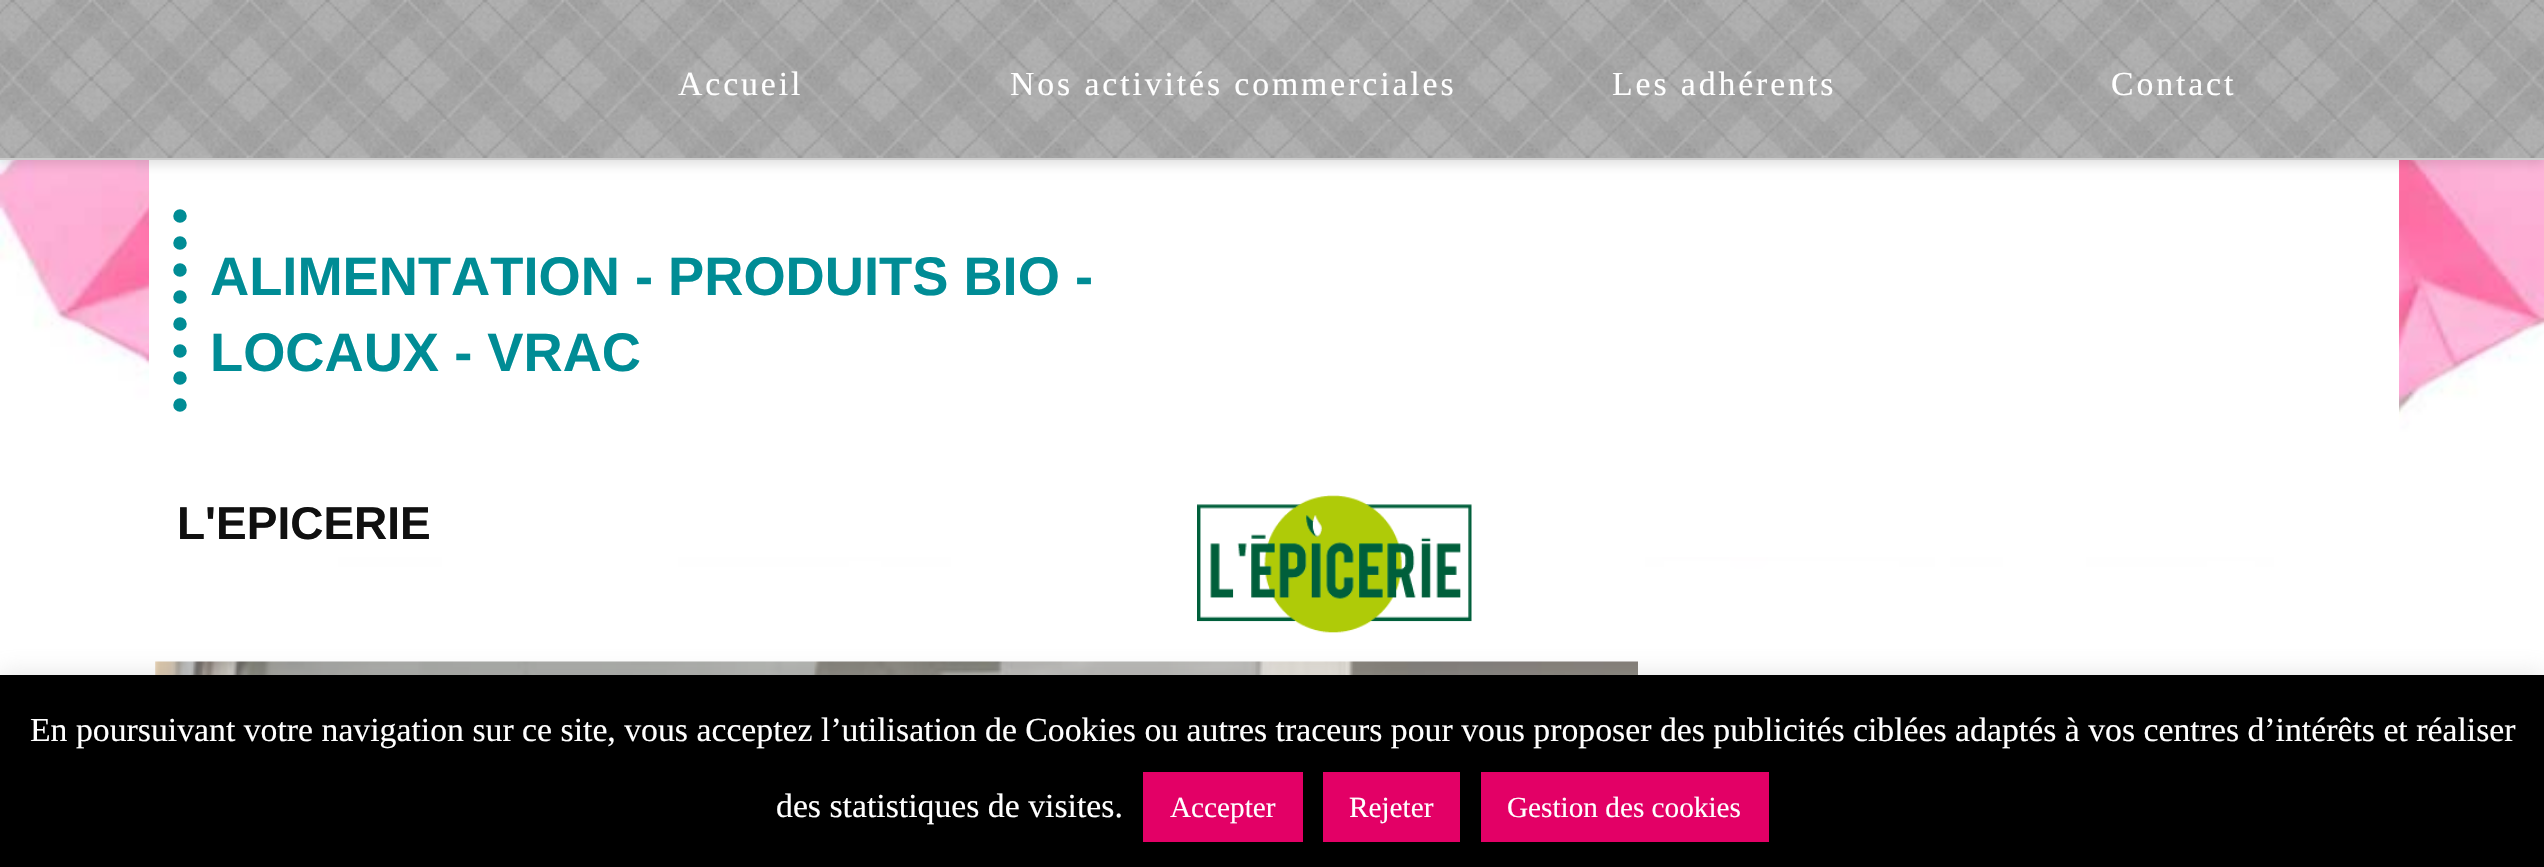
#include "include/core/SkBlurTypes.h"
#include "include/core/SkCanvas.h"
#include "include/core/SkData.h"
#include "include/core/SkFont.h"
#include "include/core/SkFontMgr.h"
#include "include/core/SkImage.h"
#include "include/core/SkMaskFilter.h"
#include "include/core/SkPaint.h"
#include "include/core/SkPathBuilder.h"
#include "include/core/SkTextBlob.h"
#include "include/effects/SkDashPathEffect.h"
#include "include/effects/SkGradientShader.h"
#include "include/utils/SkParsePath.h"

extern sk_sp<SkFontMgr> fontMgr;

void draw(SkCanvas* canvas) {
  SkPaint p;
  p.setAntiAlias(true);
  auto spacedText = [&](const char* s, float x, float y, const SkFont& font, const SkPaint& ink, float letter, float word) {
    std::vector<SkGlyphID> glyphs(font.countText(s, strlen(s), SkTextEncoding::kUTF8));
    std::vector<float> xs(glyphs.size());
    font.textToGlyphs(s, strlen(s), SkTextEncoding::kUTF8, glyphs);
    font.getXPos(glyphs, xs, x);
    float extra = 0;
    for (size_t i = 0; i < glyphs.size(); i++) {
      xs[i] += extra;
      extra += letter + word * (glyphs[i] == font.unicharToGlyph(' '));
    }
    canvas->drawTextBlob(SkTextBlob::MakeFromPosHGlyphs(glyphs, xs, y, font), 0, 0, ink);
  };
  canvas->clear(SK_ColorWHITE);
  canvas->drawImageRect(SkImages::DeferredFromEncodedData(SkData::MakeFromFileName("images/4.png")), SkRect::MakeLTRB(0, 160, 2544, 675), SkSamplingOptions());
  p.setColor(SK_ColorWHITE);
  canvas->drawRect(SkRect::MakeLTRB(149, 160, 2399, 557), p);
  p.setColor(SkColorSetARGB(33, 0, 0, 0));
  p.setMaskFilter(SkMaskFilter::MakeBlur(kNormal_SkBlurStyle, 5.5f));
  canvas->drawRect(SkRect::MakeLTRB(0, 5, 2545, 164), p);
  p.setMaskFilter(nullptr);
  canvas->drawImageRect(SkImages::DeferredFromEncodedData(SkData::MakeFromFileName("images/1.png")), SkRect::MakeLTRB(0, 0, 2544, 158), SkSamplingOptions());
  p.setColor(SkColorSetRGB(204, 204, 204));
  canvas->drawRect(SkRect::MakeLTRB(0, 158, 2544, 160), p);
  p.setStyle(SkPaint::kStroke_Style);
  p.setStrokeWidth(13.5f);
  p.setStrokeCap(SkPaint::kRound_Cap);
  p.setColor(SkColorSetRGB(0, 140, 149));
  p.setPathEffect(SkDashPathEffect::Make({{0, 27}}, 0));
  canvas->drawPath(SkPathBuilder().moveTo(180, 216).lineTo(180, 414).detach(), p);
  p.setPathEffect(nullptr);
  canvas->drawImageRect(SkImages::DeferredFromEncodedData(SkData::MakeFromFileName("images/2.png")), SkRect::MakeLTRB(1197, 495, 1472, 633), SkSamplingOptions());
  canvas->drawImageRect(SkImages::DeferredFromEncodedData(SkData::MakeFromFileName("images/3.png")), SkRect::MakeLTRB(155, 661, 1638, 675), SkSamplingOptions());
  p.setStyle(SkPaint::kFill_Style);
  p.setColor(SkColorSetARGB(77, 172, 171, 171));
  p.setMaskFilter(SkMaskFilter::MakeBlur(kNormal_SkBlurStyle, 11));
  canvas->drawRect(SkRect::MakeLTRB(0, 673, 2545, 866), p);
  p.setMaskFilter(nullptr);
  p.setColor(SK_ColorBLACK);
  canvas->drawRect(SkRect::MakeLTRB(0, 675, 2544, 867), p);
  p.setColor(SkColorSetRGB(227, 0, 102));
  canvas->drawRect(SkRect::MakeLTRB(1143, 772, 1303, 842), p);
  canvas->drawRect(SkRect::MakeLTRB(1323, 772, 1460, 842), p);
  canvas->drawRect(SkRect::MakeLTRB(1481, 772, 1769, 842), p);
  SkFont font1(fontMgr->matchFamilyStyle("Liberation Serif", SkFontStyle::Normal()), 33.75f);
  font1.setSubpixel(true);
  p.setColor(SK_ColorWHITE);
  spacedText("Accueil", 678, 95, font1, p, 2.9f, 0);
  spacedText("Nos activités commerciales", 1010, 95, font1, p, 2.9f, 0);
  spacedText("Les adhérents", 1612, 95, font1, p, 2.9f, 0);
  spacedText("Contact", 2111, 95, font1, p, 2.9f, 0);
  SkFont font2(fontMgr->matchFamilyStyle("Liberation Sans", SkFontStyle::Bold()), 54.25f);
  font2.setSubpixel(true);
  p.setColor(SkColorSetRGB(0, 140, 149));
  canvas->drawString("ALIMENTATION - PRODUITS BIO -", 210, 295, font2, p);
  canvas->drawString("LOCAUX - VRAC", 210, 371, font2, p);
  SkFont font3(fontMgr->matchFamilyStyle("Liberation Sans", SkFontStyle::Bold()), 46);
  font3.setSubpixel(true);
  p.setColor(SkColorSetRGB(16, 16, 16));
  canvas->drawString("L'EPICERIE", 177, 539, font3, p);
  p.setColor(SK_ColorWHITE);
  canvas->drawString("En poursuivant votre navigation sur ce site, vous acceptez l’utilisation de Cookies ou autres traceurs pour vous proposer des publicités ciblées adaptés à vos centres d’intérêts et réaliser", 30, 741, font1, p);
  canvas->drawString("des statistiques de visites.", 776, 817, font1, p);
  SkFont font4(fontMgr->matchFamilyStyle("Liberation Serif", SkFontStyle::Normal()), 29.25f);
  font4.setSubpixel(true);
  canvas->drawString("Accepter", 1170, 817, font4, p);
  canvas->drawString("Rejeter", 1349, 817, font4, p);
  canvas->drawString("Gestion des cookies", 1507, 817, font4, p);
}
